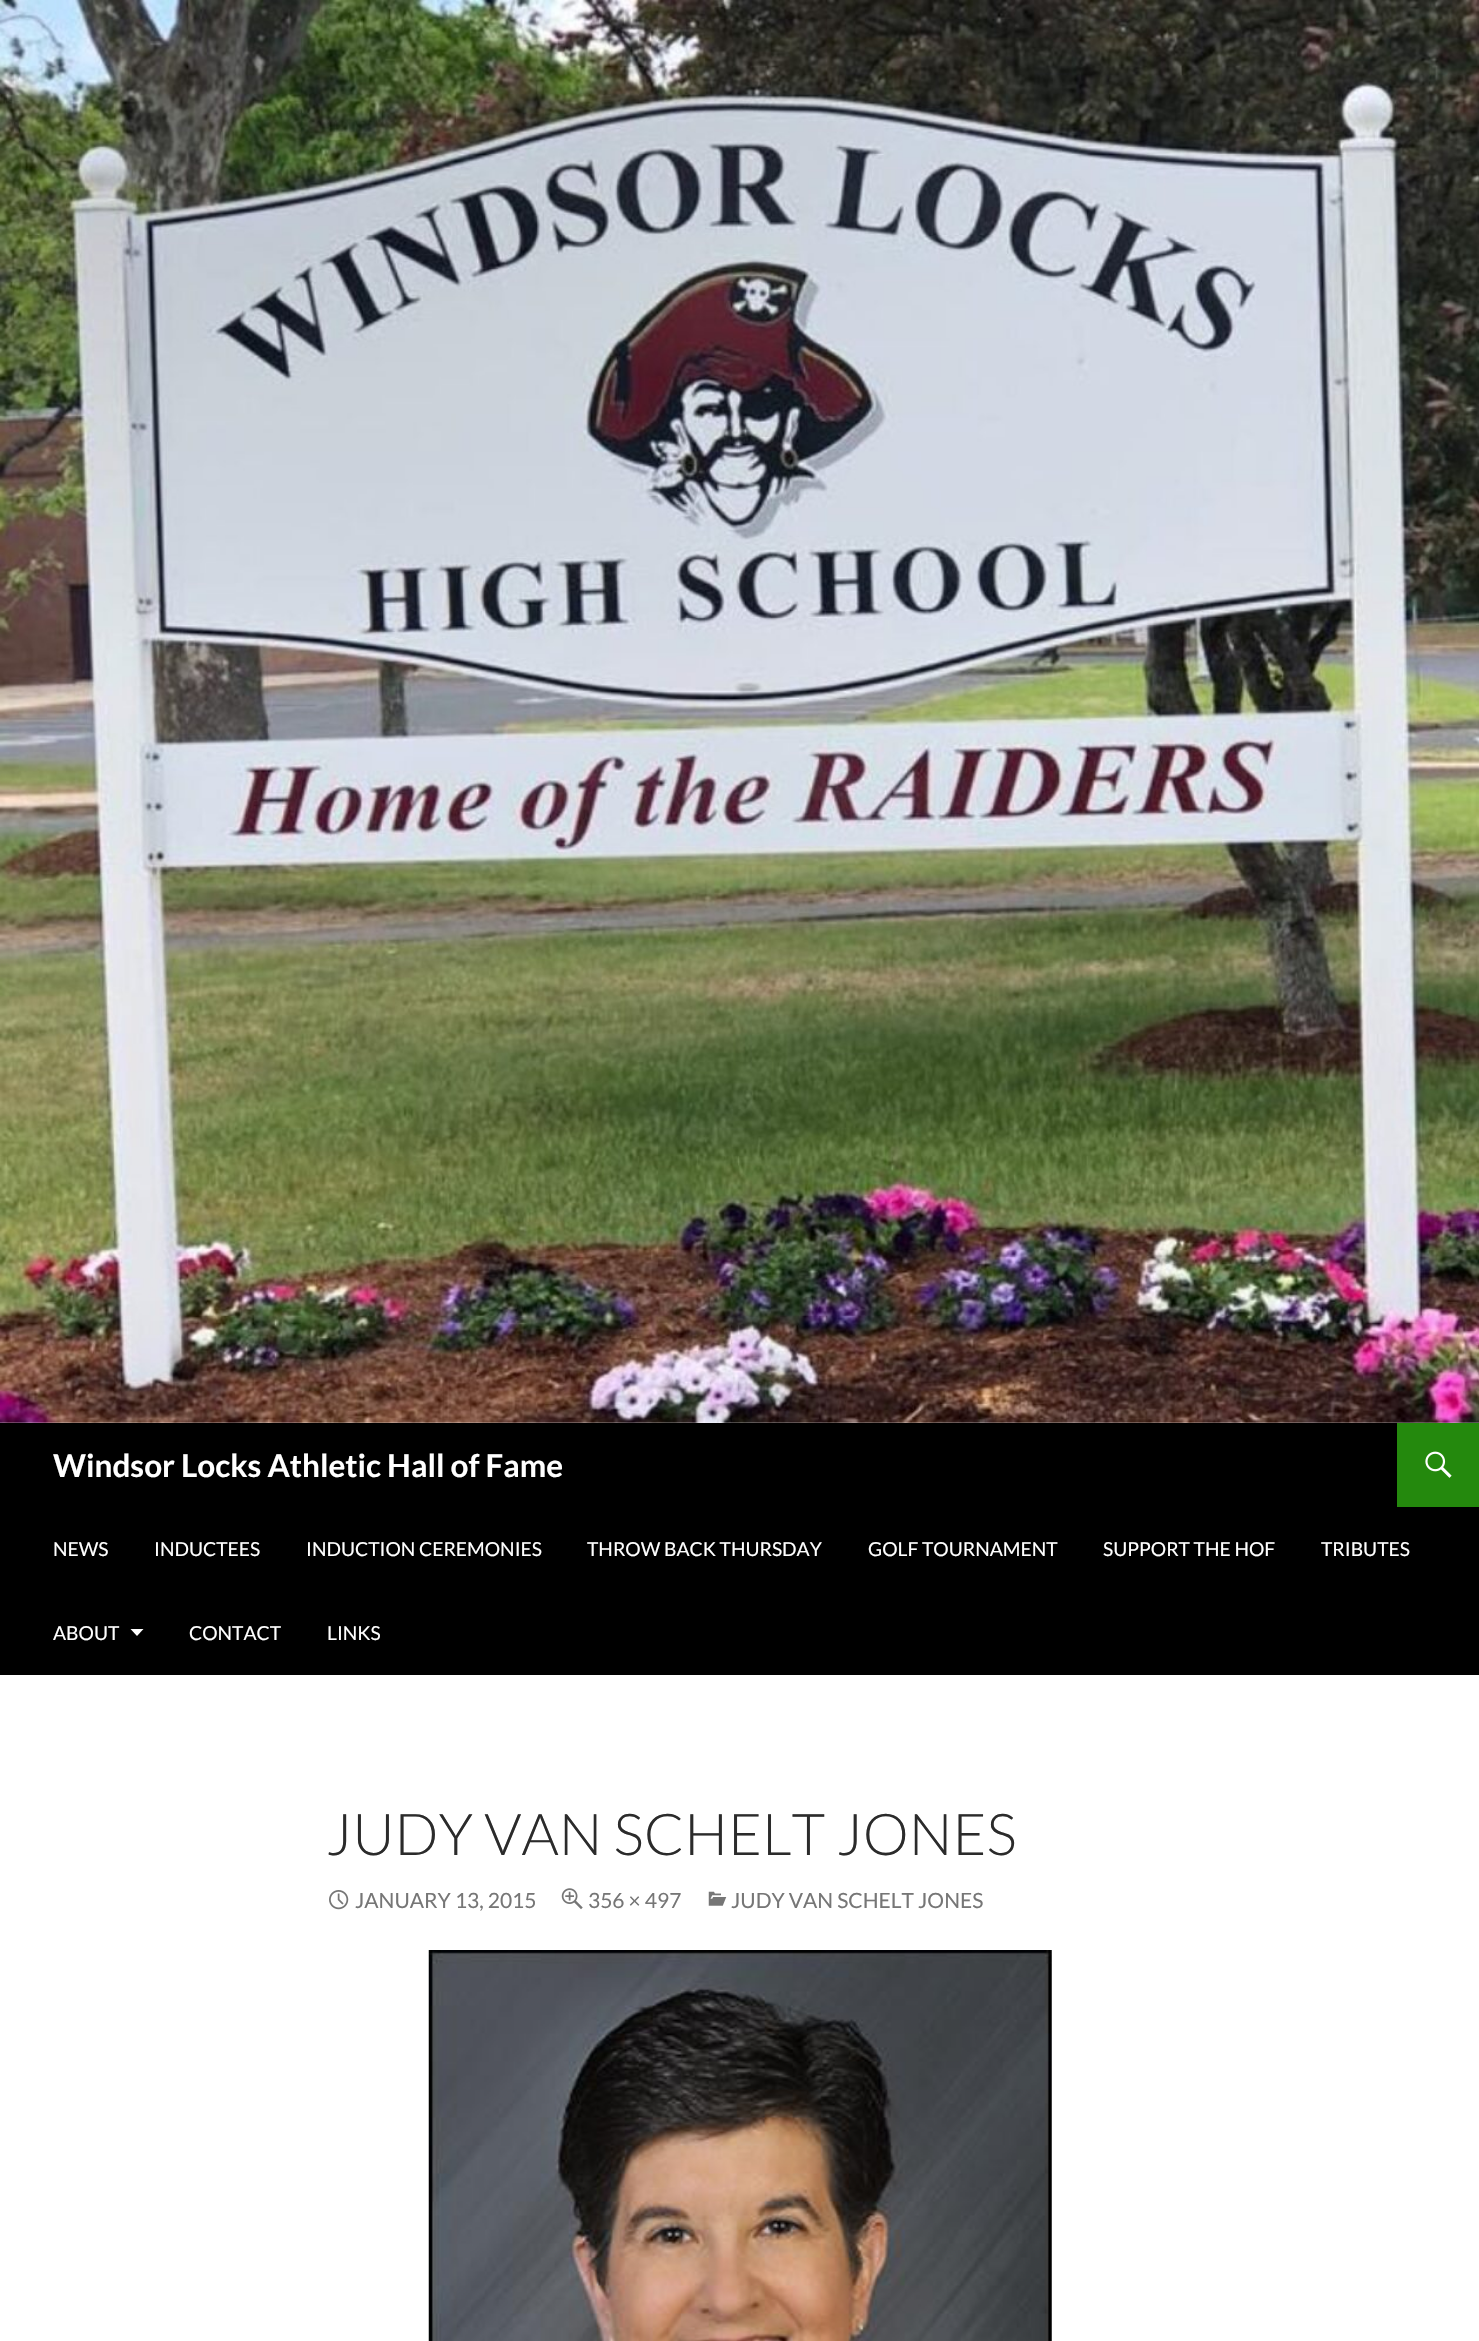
#include "include/core/SkBlurTypes.h"
#include "include/core/SkCanvas.h"
#include "include/core/SkData.h"
#include "include/core/SkFont.h"
#include "include/core/SkFontMgr.h"
#include "include/core/SkImage.h"
#include "include/core/SkMaskFilter.h"
#include "include/core/SkPaint.h"
#include "include/core/SkPathBuilder.h"
#include "include/core/SkTextBlob.h"
#include "include/effects/SkDashPathEffect.h"
#include "include/effects/SkGradientShader.h"
#include "include/utils/SkParsePath.h"

extern sk_sp<SkFontMgr> fontMgr;

void draw(SkCanvas* canvas) {
  SkPaint p;
  p.setAntiAlias(true);
  canvas->clear(SK_ColorWHITE);
  canvas->drawImageRect(SkImages::DeferredFromEncodedData(SkData::MakeFromFileName("images/1.png")), SkRect::MakeLTRB(0, 0, 1479, 1423), SkSamplingOptions());
  p.setColor(SK_ColorBLACK);
  canvas->drawRect(SkRect::MakeLTRB(0, 1423, 1479, 1675), p);
  p.setColor(SkColorSetRGB(36, 137, 13));
  canvas->drawRect(SkRect::MakeLTRB(1397, 1423, 1479, 1507), p);
  canvas->drawImageRect(SkImages::DeferredFromEncodedData(SkData::MakeFromFileName("images/2.png")), SkRect::MakeLTRB(1425, 1451, 1452, 1478), SkSamplingOptions());
  p.setColor(SK_ColorWHITE);
  canvas->drawPath(SkPathBuilder().moveTo(130.5f, 1629).lineTo(137, 1636).lineTo(143.5f, 1629).close().detach(), p);
  canvas->drawImageRect(SkImages::DeferredFromEncodedData(SkData::MakeFromFileName("images/3.png")), SkRect::MakeLTRB(329, 1890, 349, 1910), SkSamplingOptions());
  canvas->drawImageRect(SkImages::DeferredFromEncodedData(SkData::MakeFromFileName("images/4.png")), SkRect::MakeLTRB(561, 1888, 583, 1910), SkSamplingOptions());
  canvas->drawImageRect(SkImages::DeferredFromEncodedData(SkData::MakeFromFileName("images/5.png")), SkRect::MakeLTRB(708, 1891, 727, 1906), SkSamplingOptions());
  canvas->drawImageRect(SkImages::DeferredFromEncodedData(SkData::MakeFromFileName("images/6.png")), SkRect::MakeLTRB(428, 1950, 1052, 2341), SkSamplingOptions());
  SkFont font1(fontMgr->matchFamilyStyle("Lato", SkFontStyle::Bold()), 31.5f);
  font1.setSubpixel(true);
  canvas->drawString("Windsor Locks Athletic Hall of Fame", 53, 1477, font1, p);
  SkFont font2(fontMgr->matchFamilyStyle("Lato", SkFontStyle::Normal()), 19.25f);
  font2.setSubpixel(true);
  canvas->drawString("NEWS", 53, 1556, font2, p);
  canvas->drawString("INDUCTEES", 154, 1556, font2, p);
  canvas->drawString("INDUCTION CEREMONIES", 306, 1556, font2, p);
  canvas->drawString("THROW BACK THURSDAY", 587, 1556, font2, p);
  canvas->drawString("GOLF TOURNAMENT", 868, 1556, font2, p);
  canvas->drawString("SUPPORT THE HOF", 1103, 1556, font2, p);
  canvas->drawString("TRIBUTES", 1321, 1556, font2, p);
  canvas->drawString("ABOUT", 53, 1640, font2, p);
  canvas->drawString("CONTACT", 189, 1640, font2, p);
  canvas->drawString("LINKS", 327, 1640, font2, p);
  SkFont font3(fontMgr->matchFamilyStyle("Lato", SkFontStyle(300, SkFontStyle::kNormal_Width, SkFontStyle::kUpright_Slant)), 57.75f);
  font3.setSubpixel(true);
  p.setColor(SkColorSetRGB(43, 43, 43));
  canvas->drawString("JUDY VAN SCHELT JONES", 326, 1855, font3, p);
  SkFont font4(fontMgr->matchFamilyStyle("Lato", SkFontStyle::Normal()), 21);
  font4.setSubpixel(true);
  p.setColor(SkColorSetRGB(118, 118, 118));
  canvas->drawString("JANUARY 13, 2015", 355, 1908, font4, p);
  canvas->drawString("356 × 497", 588, 1908, font4, p);
  canvas->drawString("JUDY VAN SCHELT JONES", 731, 1908, font4, p);
}
